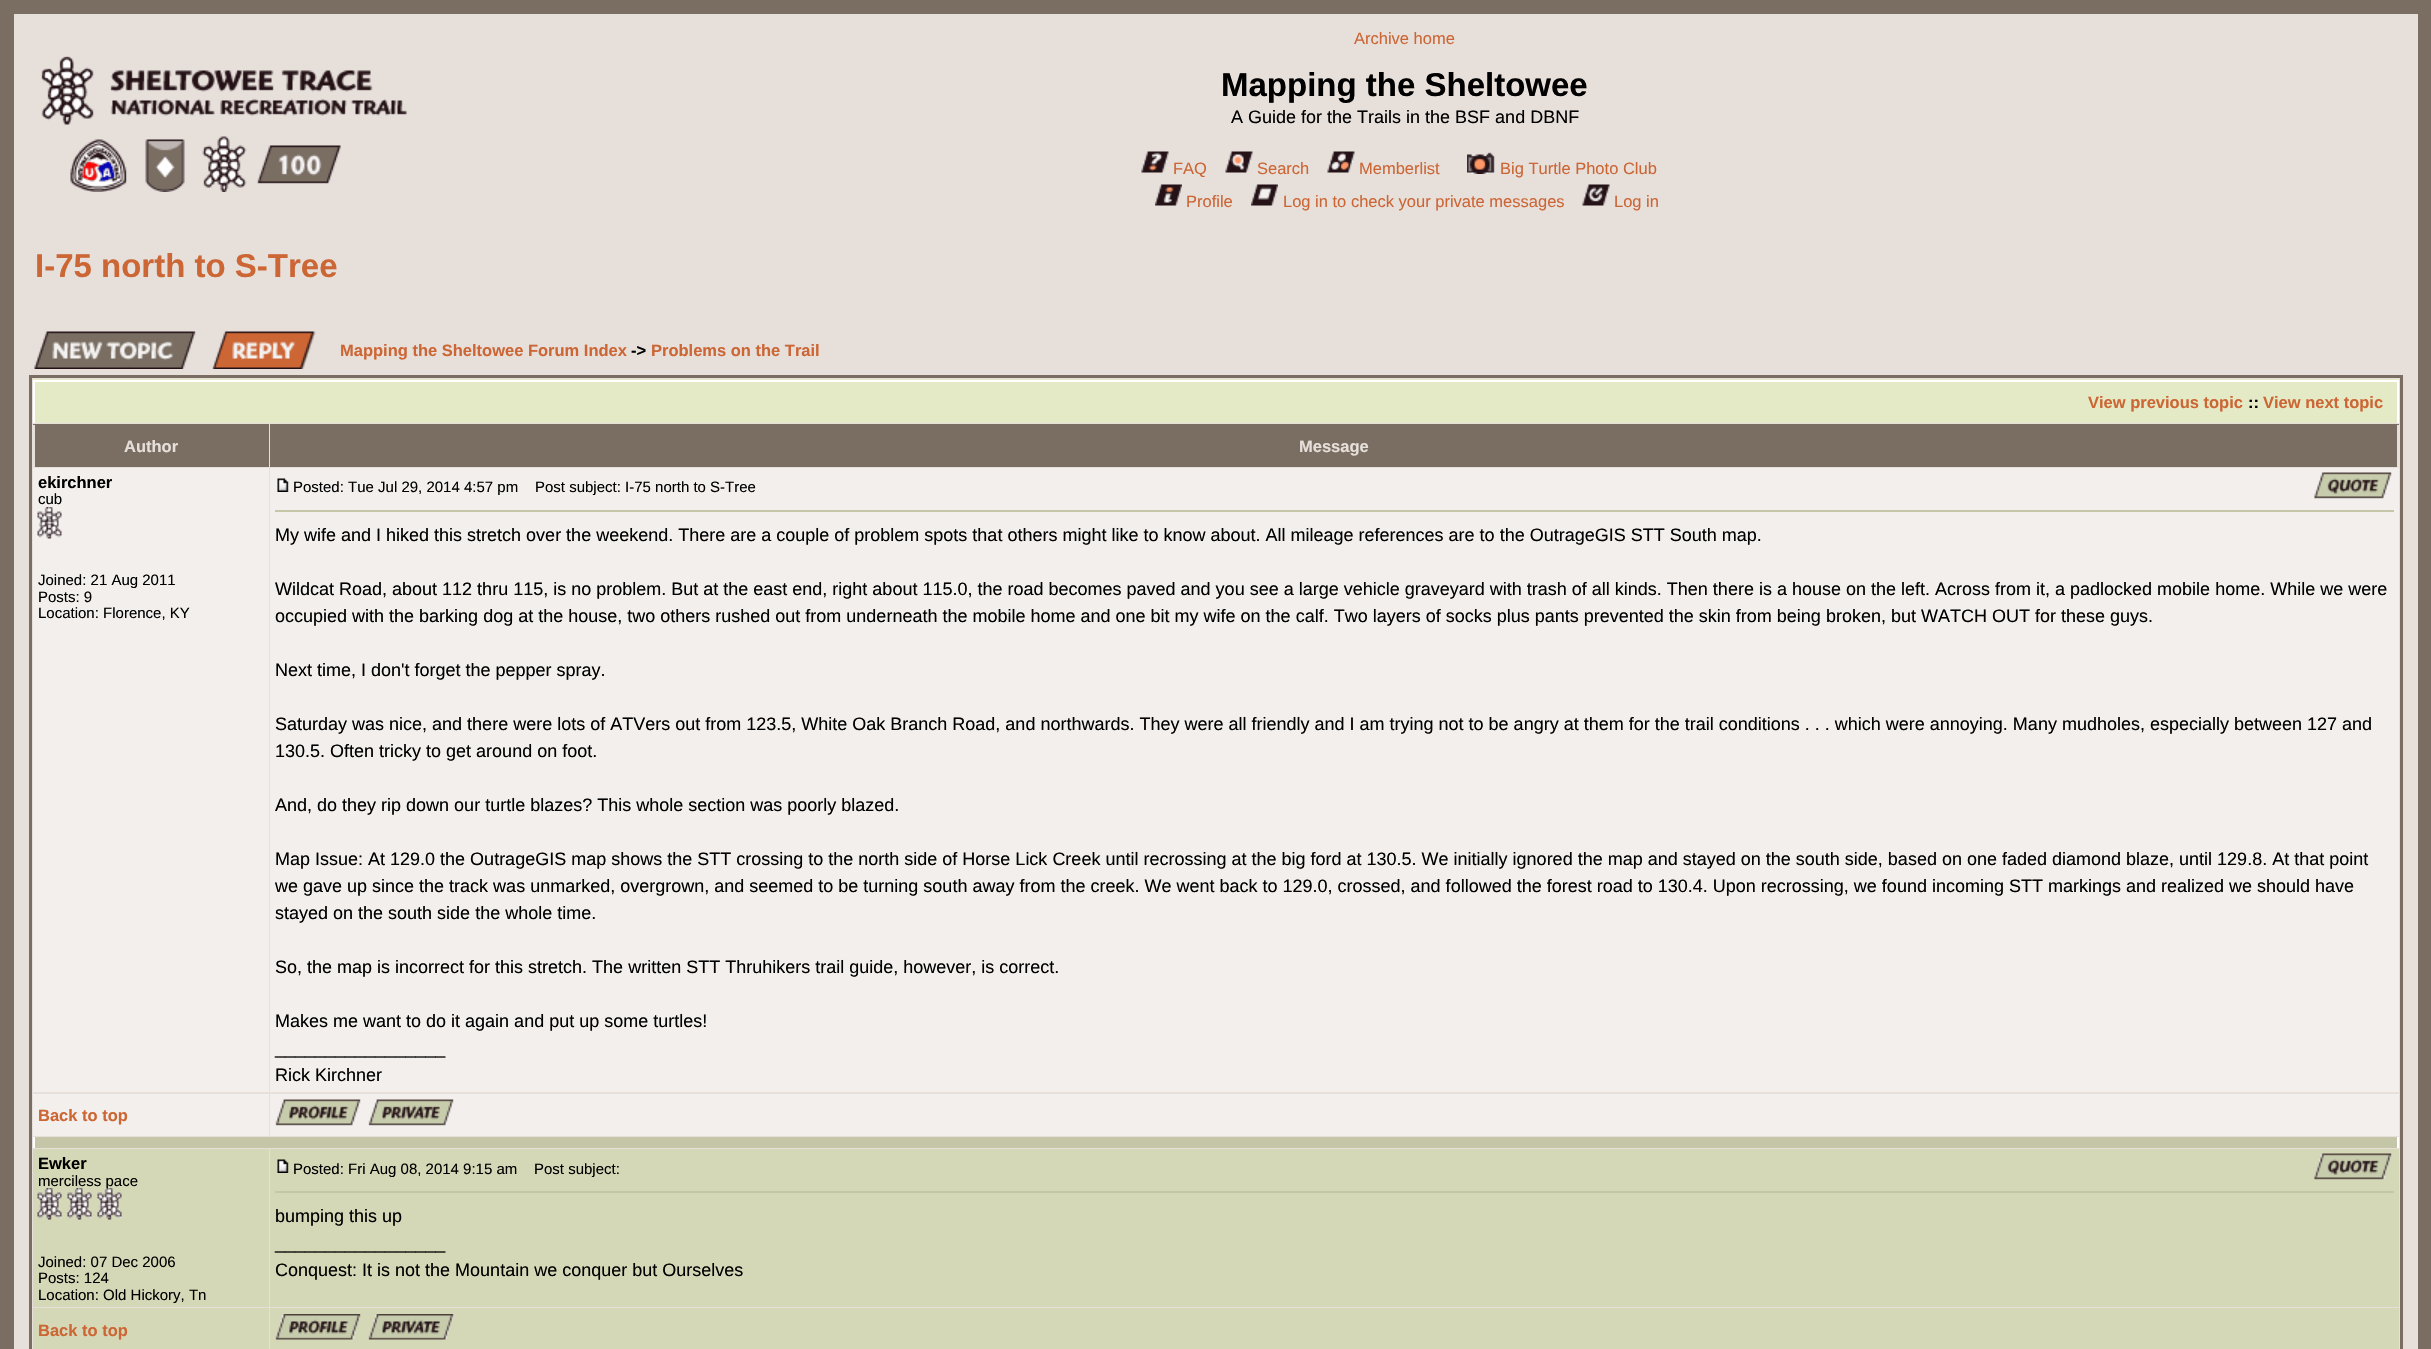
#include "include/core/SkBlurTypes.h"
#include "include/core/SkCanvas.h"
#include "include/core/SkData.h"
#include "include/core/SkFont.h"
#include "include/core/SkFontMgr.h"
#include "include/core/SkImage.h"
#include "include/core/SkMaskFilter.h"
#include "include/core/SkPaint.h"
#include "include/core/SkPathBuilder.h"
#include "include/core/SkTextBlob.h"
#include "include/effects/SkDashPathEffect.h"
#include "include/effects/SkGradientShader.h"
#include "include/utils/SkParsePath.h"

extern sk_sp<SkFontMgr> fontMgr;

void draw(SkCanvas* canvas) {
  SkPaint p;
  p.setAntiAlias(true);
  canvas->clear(SkColorSetRGB(122, 110, 98));
  p.setColor(SkColorSetRGB(230, 223, 218));
  canvas->drawRect(SkRect::MakeLTRB(14, 14, 2418, 1349), p);
  canvas->drawImageRect(SkImages::DeferredFromEncodedData(SkData::MakeFromFileName("images/1.png")), SkRect::MakeLTRB(41, 56, 407, 192), SkSamplingOptions());
  canvas->drawImageRect(SkImages::DeferredFromEncodedData(SkData::MakeFromFileName("images/2.png")), SkRect::MakeLTRB(1141, 151, 1169, 173), SkSamplingOptions());
  canvas->drawImageRect(SkImages::DeferredFromEncodedData(SkData::MakeFromFileName("images/3.png")), SkRect::MakeLTRB(1225, 151, 1253, 173), SkSamplingOptions());
  canvas->drawImageRect(SkImages::DeferredFromEncodedData(SkData::MakeFromFileName("images/4.png")), SkRect::MakeLTRB(1327, 151, 1355, 173), SkSamplingOptions());
  canvas->drawImageRect(SkImages::DeferredFromEncodedData(SkData::MakeFromFileName("images/5.png")), SkRect::MakeLTRB(1467, 152, 1495, 174), SkSamplingOptions());
  canvas->drawImageRect(SkImages::DeferredFromEncodedData(SkData::MakeFromFileName("images/6.png")), SkRect::MakeLTRB(1155, 184, 1182, 206), SkSamplingOptions());
  canvas->drawImageRect(SkImages::DeferredFromEncodedData(SkData::MakeFromFileName("images/7.png")), SkRect::MakeLTRB(1251, 184, 1278, 206), SkSamplingOptions());
  canvas->drawImageRect(SkImages::DeferredFromEncodedData(SkData::MakeFromFileName("images/8.png")), SkRect::MakeLTRB(1582, 184, 1610, 206), SkSamplingOptions());
  canvas->drawImageRect(SkImages::DeferredFromEncodedData(SkData::MakeFromFileName("images/9.png")), SkRect::MakeLTRB(34, 331, 196, 369), SkSamplingOptions());
  canvas->drawImageRect(SkImages::DeferredFromEncodedData(SkData::MakeFromFileName("images/10.png")), SkRect::MakeLTRB(212, 331, 316, 369), SkSamplingOptions());
  p.setStyle(SkPaint::kStroke_Style);
  p.setStrokeWidth(3);
  p.setColor(SkColorSetRGB(122, 110, 98));
  canvas->drawRect(SkRect::MakeLTRB(30.5f, 376.5f, 2401.5f, 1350.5f), p);
  p.setStyle(SkPaint::kFill_Style);
  p.setColor(SkColorSetRGB(228, 234, 197));
  canvas->drawRect(SkRect::MakeLTRB(33, 379, 2399, 423), p);
  p.setColor(SK_ColorWHITE);
  canvas->drawRect(SkRect::MakeLTRB(33, 380, 2399, 382), p);
  canvas->drawRect(SkRect::MakeLTRB(2397, 380, 2399, 423), p);
  canvas->drawRect(SkRect::MakeLTRB(33, 380, 35, 423), p);
  p.setColor(SkColorSetRGB(122, 110, 98));
  canvas->drawRect(SkRect::MakeLTRB(33, 424, 269, 467), p);
  p.setColor(SkColorSetRGB(230, 223, 218));
  canvas->drawRect(SkRect::MakeLTRB(33, 425, 35, 467), p);
  p.setColor(SkColorSetRGB(122, 110, 98));
  canvas->drawRect(SkRect::MakeLTRB(270, 424, 2399, 467), p);
  p.setColor(SkColorSetRGB(230, 223, 218));
  canvas->drawRect(SkRect::MakeLTRB(2397, 425, 2399, 467), p);
  p.setColor(SkColorSetRGB(242, 239, 236));
  canvas->drawRect(SkRect::MakeLTRB(33, 468, 269, 1092), p);
  canvas->drawImageRect(SkImages::DeferredFromEncodedData(SkData::MakeFromFileName("images/11.png")), SkRect::MakeLTRB(37, 507, 62, 539), SkSamplingOptions());
  canvas->drawRect(SkRect::MakeLTRB(270, 468, 2399, 1092), p);
  canvas->drawImageRect(SkImages::DeferredFromEncodedData(SkData::MakeFromFileName("images/12.png")), SkRect::MakeLTRB(277, 478, 289, 492), SkSamplingOptions());
  canvas->drawImageRect(SkImages::DeferredFromEncodedData(SkData::MakeFromFileName("images/13.png")), SkRect::MakeLTRB(2314, 472, 2392, 499), SkSamplingOptions());
  p.setColor(SkColorSetRGB(197, 198, 168));
  canvas->drawRect(SkRect::MakeLTRB(275, 510, 2394, 512), p);
  p.setColor(SkColorSetRGB(242, 239, 236));
  canvas->drawRect(SkRect::MakeLTRB(33, 1094, 269, 1136), p);
  canvas->drawRect(SkRect::MakeLTRB(270, 1094, 2399, 1136), p);
  canvas->drawImageRect(SkImages::DeferredFromEncodedData(SkData::MakeFromFileName("images/14.png")), SkRect::MakeLTRB(275, 1099, 361, 1126), SkSamplingOptions());
  canvas->drawImageRect(SkImages::DeferredFromEncodedData(SkData::MakeFromFileName("images/15.png")), SkRect::MakeLTRB(368, 1099, 454, 1126), SkSamplingOptions());
  p.setColor(SkColorSetRGB(197, 198, 168));
  canvas->drawRect(SkRect::MakeLTRB(35, 1137, 2397, 1148), p);
  p.setColor(SK_ColorWHITE);
  canvas->drawRect(SkRect::MakeLTRB(2397, 1137, 2399, 1148), p);
  canvas->drawRect(SkRect::MakeLTRB(33, 1137, 35, 1148), p);
  p.setColor(SkColorSetRGB(212, 216, 182));
  canvas->drawRect(SkRect::MakeLTRB(33, 1149, 269, 1307), p);
  canvas->drawRect(SkRect::MakeLTRB(270, 1149, 2399, 1307), p);
  canvas->drawImageRect(SkImages::DeferredFromEncodedData(SkData::MakeFromFileName("images/17.png")), SkRect::MakeLTRB(277, 1159, 289, 1173), SkSamplingOptions());
  canvas->drawImageRect(SkImages::DeferredFromEncodedData(SkData::MakeFromFileName("images/18.png")), SkRect::MakeLTRB(2314, 1153, 2392, 1180), SkSamplingOptions());
  p.setColor(SkColorSetRGB(197, 198, 168));
  canvas->drawRect(SkRect::MakeLTRB(275, 1191, 2394, 1193), p);
  p.setColor(SkColorSetRGB(212, 216, 182));
  canvas->drawRect(SkRect::MakeLTRB(33, 1308, 269, 1349), p);
  canvas->drawRect(SkRect::MakeLTRB(270, 1308, 2399, 1349), p);
  canvas->drawImageRect(SkImages::DeferredFromEncodedData(SkData::MakeFromFileName("images/19.png")), SkRect::MakeLTRB(275, 1314, 361, 1340), SkSamplingOptions());
  canvas->drawImageRect(SkImages::DeferredFromEncodedData(SkData::MakeFromFileName("images/20.png")), SkRect::MakeLTRB(368, 1314, 454, 1340), SkSamplingOptions());
  SkFont font1(fontMgr->matchFamilyStyle("Liberation Sans", SkFontStyle::Normal()), 16.5f);
  font1.setSubpixel(true);
  p.setColor(SkColorSetRGB(204, 102, 53));
  canvas->drawString("Archive home", 1354, 44, font1, p);
  SkFont font2(fontMgr->matchFamilyStyle("Liberation Sans", SkFontStyle::Bold()), 33);
  font2.setSubpixel(true);
  p.setColor(SK_ColorBLACK);
  canvas->drawString("Mapping the Sheltowee", 1221, 96, font2, p);
  SkFont font3(fontMgr->matchFamilyStyle("Liberation Sans", SkFontStyle::Normal()), 18);
  font3.setSubpixel(true);
  canvas->drawString("A Guide for the Trails in the BSF and DBNF", 1231, 123, font3, p);
  p.setColor(SkColorSetRGB(204, 102, 53));
  canvas->drawString("FAQ", 1173, 174, font1, p);
  canvas->drawString("Search", 1257, 174, font1, p);
  canvas->drawString("Memberlist", 1359, 174, font1, p);
  canvas->drawString("Big Turtle Photo Club", 1500, 174, font1, p);
  canvas->drawString("Profile", 1186, 207, font1, p);
  canvas->drawString("Log in to check your private messages", 1283, 207, font1, p);
  canvas->drawString("Log in", 1614, 207, font1, p);
  canvas->drawString("I-75 north to S-Tree", 35, 277, font2, p);
  SkFont font4(fontMgr->matchFamilyStyle("Liberation Sans", SkFontStyle::Bold()), 16.5f);
  font4.setSubpixel(true);
  canvas->drawString("Mapping the Sheltowee Forum Index", 340, 356, font4, p);
  p.setColor(SK_ColorBLACK);
  canvas->drawString("->", 631, 356, font4, p);
  p.setColor(SkColorSetRGB(204, 102, 53));
  canvas->drawString("Problems on the Trail", 651, 356, font4, p);
  canvas->drawString("View previous topic", 2088, 408, font4, p);
  p.setColor(SK_ColorBLACK);
  canvas->drawString("::", 2248, 408, font4, p);
  p.setColor(SkColorSetRGB(204, 102, 53));
  canvas->drawString("View next topic", 2263, 408, font4, p);
  p.setColor(SkColorSetRGB(230, 223, 218));
  canvas->drawString("Author", 124, 452, font4, p);
  canvas->drawString("Message", 1299, 452, font4, p);
  p.setColor(SK_ColorBLACK);
  canvas->drawString("ekirchner", 38, 488, font4, p);
  SkFont font5(fontMgr->matchFamilyStyle("Liberation Sans", SkFontStyle::Normal()), 15);
  font5.setSubpixel(true);
  canvas->drawString("cub", 38, 504, font5, p);
  canvas->drawString("Joined: 21 Aug 2011", 38, 585, font5, p);
  canvas->drawString("Posts: 9", 38, 602, font5, p);
  canvas->drawString("Location: Florence, KY", 38, 618, font5, p);
  canvas->drawString("Posted: Tue Jul 29, 2014 4:57 pm", 293, 492, font5, p);
  canvas->drawString("Post subject: I-75 north to S-Tree", 535, 492, font5, p);
  canvas->drawString("My wife and I hiked this stretch over the weekend. There are a couple of problem spots that others might like to know about. All mileage references are to the OutrageGIS STT South map.", 275, 541, font3, p);
  canvas->drawString("Wildcat Road, about 112 thru 115, is no problem. But at the east end, right about 115.0, the road becomes paved and you see a large vehicle graveyard with trash of all kinds. Then there is a house on the left. Across from it, a padlocked mobile home. While we were", 275, 595, font3, p);
  canvas->drawString("occupied with the barking dog at the house, two others rushed out from underneath the mobile home and one bit my wife on the calf. Two layers of socks plus pants prevented the skin from being broken, but WATCH OUT for these guys.", 275, 622, font3, p);
  canvas->drawString("Next time, I don't forget the pepper spray.", 275, 676, font3, p);
  canvas->drawString("Saturday was nice, and there were lots of ATVers out from 123.5, White Oak Branch Road, and northwards. They were all friendly and I am trying not to be angry at them for the trail conditions . . . which were annoying. Many mudholes, especially between 127 and", 275, 730, font3, p);
  canvas->drawString("130.5. Often tricky to get around on foot.", 275, 757, font3, p);
  canvas->drawString("And, do they rip down our turtle blazes? This whole section was poorly blazed.", 275, 811, font3, p);
  canvas->drawString("Map Issue: At 129.0 the OutrageGIS map shows the STT crossing to the north side of Horse Lick Creek until recrossing at the big ford at 130.5. We initially ignored the map and stayed on the south side, based on one faded diamond blaze, until 129.8. At that point", 275, 865, font3, p);
  canvas->drawString("we gave up since the track was unmarked, overgrown, and seemed to be turning south away from the creek. We went back to 129.0, crossed, and followed the forest road to 130.4. Upon recrossing, we found incoming STT markings and realized we should have", 275, 892, font3, p);
  canvas->drawString("stayed on the south side the whole time.", 275, 919, font3, p);
  canvas->drawString("So, the map is incorrect for this stretch. The written STT Thruhikers trail guide, however, is correct.", 275, 973, font3, p);
  canvas->drawString("Makes me want to do it again and put up some turtles!", 275, 1027, font3, p);
  canvas->drawString("_________________", 275, 1054, font3, p);
  canvas->drawString("Rick Kirchner", 275, 1081, font3, p);
  p.setColor(SkColorSetRGB(204, 102, 53));
  canvas->drawString("Back to top", 38, 1121, font4, p);
  p.setColor(SK_ColorBLACK);
  canvas->drawString("Ewker", 38, 1169, font4, p);
  canvas->drawString("merciless pace", 38, 1186, font5, p);
  canvas->drawImageRect(SkImages::DeferredFromEncodedData(SkData::MakeFromFileName("images/16.png")), SkRect::MakeLTRB(37, 1188, 122, 1220), SkSamplingOptions());
  canvas->drawString("Joined: 07 Dec 2006", 38, 1267, font5, p);
  canvas->drawString("Posts: 124", 38, 1283, font5, p);
  canvas->drawString("Location: Old Hickory, Tn", 38, 1300, font5, p);
  canvas->drawString("Posted: Fri Aug 08, 2014 9:15 am", 293, 1174, font5, p);
  canvas->drawString("Post subject:", 534, 1174, font5, p);
  canvas->drawString("bumping this up", 275, 1222, font3, p);
  canvas->drawString("_________________", 275, 1249, font3, p);
  canvas->drawString("Conquest: It is not the Mountain we conquer but Ourselves", 275, 1276, font3, p);
  p.setColor(SkColorSetRGB(204, 102, 53));
  canvas->drawString("Back to top", 38, 1336, font4, p);
}
